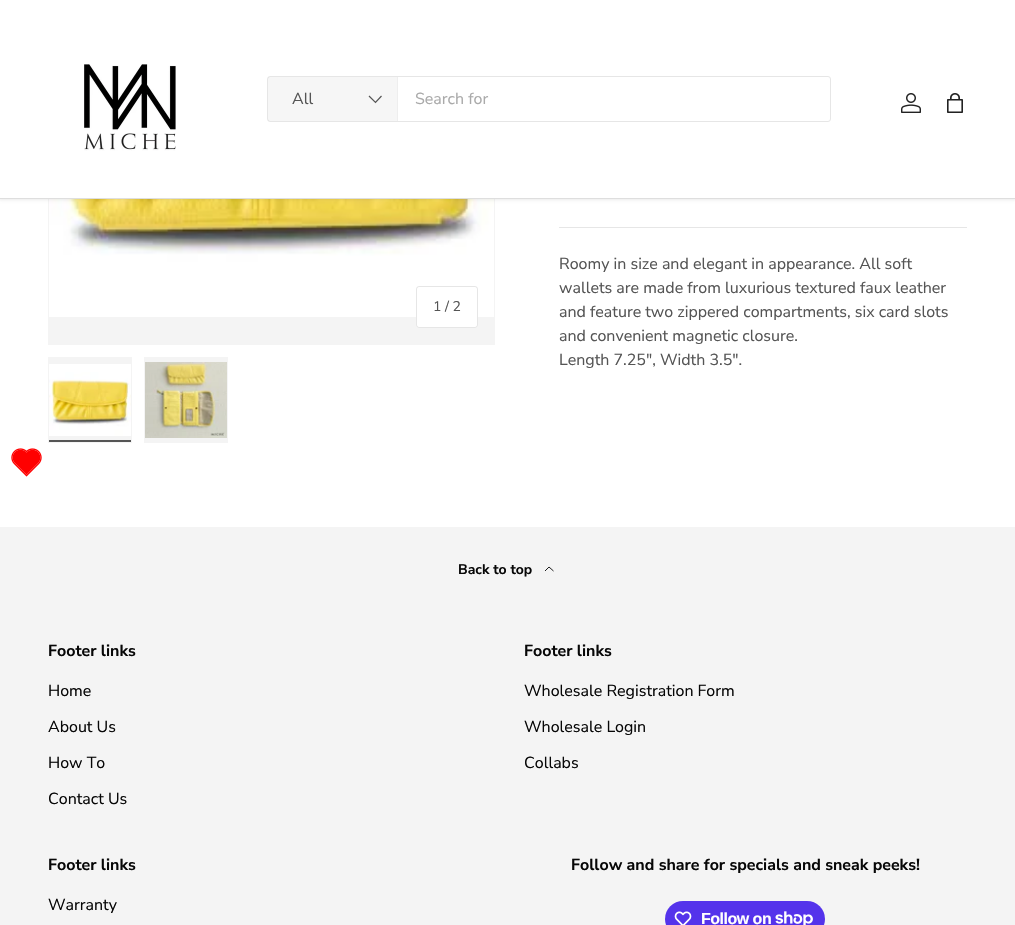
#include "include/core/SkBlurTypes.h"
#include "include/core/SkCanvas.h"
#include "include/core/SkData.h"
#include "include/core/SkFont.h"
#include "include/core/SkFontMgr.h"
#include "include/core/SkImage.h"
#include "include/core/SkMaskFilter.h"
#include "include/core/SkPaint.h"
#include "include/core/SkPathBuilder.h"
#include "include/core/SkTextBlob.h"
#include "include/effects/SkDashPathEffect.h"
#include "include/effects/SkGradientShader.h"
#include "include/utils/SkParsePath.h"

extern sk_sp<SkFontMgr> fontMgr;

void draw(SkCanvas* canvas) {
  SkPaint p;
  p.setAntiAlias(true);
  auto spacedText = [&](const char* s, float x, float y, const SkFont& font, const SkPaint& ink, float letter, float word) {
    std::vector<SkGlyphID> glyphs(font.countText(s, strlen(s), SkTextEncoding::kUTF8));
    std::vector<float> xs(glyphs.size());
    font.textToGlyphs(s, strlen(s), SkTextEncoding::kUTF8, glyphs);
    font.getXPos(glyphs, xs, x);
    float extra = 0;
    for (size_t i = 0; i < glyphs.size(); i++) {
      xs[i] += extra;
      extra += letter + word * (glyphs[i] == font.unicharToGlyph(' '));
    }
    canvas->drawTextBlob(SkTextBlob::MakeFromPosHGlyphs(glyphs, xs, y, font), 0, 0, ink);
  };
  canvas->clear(SK_ColorWHITE);
  p.setColor(SkColorSetRGB(244, 244, 244));
  canvas->drawRect(SkRect::MakeLTRB(48, 199, 495, 345), p);
  canvas->drawImageRect(SkImages::DeferredFromEncodedData(SkData::MakeFromFileName("images/4.png")), SkRect::MakeLTRB(49, 199, 494, 317), SkSamplingOptions());
  p.setColor(SkColorSetARGB(20, 0, 0, 0));
  p.setMaskFilter(SkMaskFilter::MakeBlur(kNormal_SkBlurStyle, 1.5f));
  canvas->drawRect(SkRect::MakeLTRB(-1, -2, 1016, 200), p);
  p.setMaskFilter(nullptr);
  p.setColor(SK_ColorWHITE);
  canvas->drawRect(SkRect::MakeLTRB(0, 0, 1015, 198), p);
  canvas->drawImageRect(SkImages::DeferredFromEncodedData(SkData::MakeFromFileName("images/1.png")), SkRect::MakeLTRB(84, 64, 176, 151), SkSamplingOptions());
  p.setStyle(SkPaint::kStroke_Style);
  p.setStrokeWidth(1);
  p.setColor(SkColorSetRGB(230, 230, 230));
  canvas->drawRoundRect(SkRect::MakeLTRB(267.5f, 76.5f, 830.5f, 121.5f), 2.5f, 2.5f, p);
  p.setStyle(SkPaint::kFill_Style);
  p.setColor(SkColorSetARGB(13, 85, 85, 85));
  canvas->drawRect(SkRect::MakeLTRB(268, 77, 397, 121), p);
  p.setColor(SkColorSetRGB(238, 238, 238));
  canvas->drawRect(SkRect::MakeLTRB(397, 77, 398, 121), p);
  p.setStyle(SkPaint::kStroke_Style);
  p.setStrokeWidth(1.2f);
  p.setColor(SkColorSetRGB(85, 85, 85));
  canvas->drawPath(SkPathBuilder().moveTo(381.5f, 96).lineTo(375.5f, 102.5f).lineTo(369, 96).detach(), p);
  canvas->drawImageRect(SkImages::DeferredFromEncodedData(SkData::MakeFromFileName("images/2.png")), SkRect::MakeLTRB(901, 93, 921, 113), SkSamplingOptions());
  canvas->drawImageRect(SkImages::DeferredFromEncodedData(SkData::MakeFromFileName("images/3.png")), SkRect::MakeLTRB(947, 93, 963, 113), SkSamplingOptions());
  p.setStyle(SkPaint::kFill_Style);
  p.setColor(SkColorSetRGB(222, 222, 222));
  canvas->drawRect(SkRect::MakeLTRB(0, 198, 1015, 199), p);
  p.setColor(SK_ColorWHITE);
  canvas->drawRoundRect(SkRect::MakeLTRB(416, 286, 478, 328), 3, 3, p);
  p.setStyle(SkPaint::kStroke_Style);
  p.setStrokeWidth(1);
  p.setColor(SkColorSetARGB(38, 85, 85, 85));
  canvas->drawRoundRect(SkRect::MakeLTRB(416.5f, 286.5f, 477.5f, 327.5f), 2.5f, 2.5f, p);
  p.setStyle(SkPaint::kFill_Style);
  p.setColor(SkColorSetRGB(244, 244, 244));
  canvas->drawRect(SkRect::MakeLTRB(48, 357, 132, 443), p);
  canvas->drawImageRect(SkImages::DeferredFromEncodedData(SkData::MakeFromFileName("images/5.png")), SkRect::MakeLTRB(49, 364, 131, 436), SkSamplingOptions());
  p.setColor(SkColorSetRGB(85, 85, 85));
  canvas->drawRect(SkRect::MakeLTRB(49, 440, 131, 442), p);
  p.setColor(SkColorSetRGB(244, 244, 244));
  canvas->drawRect(SkRect::MakeLTRB(144, 357, 228, 443), p);
  canvas->drawImageRect(SkImages::DeferredFromEncodedData(SkData::MakeFromFileName("images/6.png")), SkRect::MakeLTRB(145, 362, 227, 438), SkSamplingOptions());
  p.setColor(SkColorSetRGB(230, 230, 230));
  canvas->drawRect(SkRect::MakeLTRB(559, 227, 967, 228), p);
  canvas->drawImageRect(SkImages::DeferredFromEncodedData(SkData::MakeFromFileName("images/7.png")), SkRect::MakeLTRB(11, 448, 42, 477), SkSamplingOptions());
  p.setColor(SkColorSetRGB(244, 244, 244));
  canvas->drawRect(SkRect::MakeLTRB(0, 527, 1015, 925), p);
  p.setStyle(SkPaint::kStroke_Style);
  p.setStrokeWidth(0.9f);
  p.setColor(SkColorSetRGB(7, 7, 7));
  canvas->drawPath(SkPathBuilder().moveTo(545, 571).lineTo(549, 567).lineTo(553.5f, 571).detach(), p);
  p.setStyle(SkPaint::kFill_Style);
  p.setColor(SkColorSetRGB(84, 51, 235));
  canvas->drawRoundRect(SkRect::MakeLTRB(665, 901, 825, 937), 18, 18, p);
  canvas->drawImageRect(SkImages::DeferredFromEncodedData(SkData::MakeFromFileName("images/8.png")), SkRect::MakeLTRB(674, 911, 692, 925), SkSamplingOptions());
  canvas->drawImageRect(SkImages::DeferredFromEncodedData(SkData::MakeFromFileName("images/9.png")), SkRect::MakeLTRB(775, 911, 813, 925), SkSamplingOptions());
  SkFont font1(fontMgr->matchFamilyStyle("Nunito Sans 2", SkFontStyle(200, SkFontStyle::kNormal_Width, SkFontStyle::kUpright_Slant)), 16);
  font1.setSubpixel(true);
  p.setColor(SkColorSetRGB(85, 85, 85));
  canvas->drawString("All", 292, 104, font1, p);
  p.setColor(SkColorSetRGB(170, 170, 170));
  canvas->drawString("Search for", 415, 104, font1, p);
  SkFont font2(fontMgr->matchFamilyStyle("Nunito Sans 2", SkFontStyle(200, SkFontStyle::kNormal_Width, SkFontStyle::kUpright_Slant)), 14);
  font2.setSubpixel(true);
  p.setColor(SkColorSetRGB(85, 85, 85));
  canvas->drawString("1 / 2", 433, 311, font2, p);
  canvas->drawString("Roomy in size and elegant in appearance. All soft", 559, 269, font1, p);
  canvas->drawString("wallets are made from luxurious textured faux leather", 559, 293, font1, p);
  canvas->drawString("and feature two zippered compartments, six card slots", 559, 317, font1, p);
  canvas->drawString("and convenient magnetic closure.", 559, 341, font1, p);
  canvas->drawString("Length 7.25\", Width 3.5\".", 559, 365, font1, p);
  SkFont font3(fontMgr->matchFamilyStyle("Nunito Sans", SkFontStyle(200, SkFontStyle::kNormal_Width, SkFontStyle::kUpright_Slant)), 14);
  font3.setSubpixel(true);
  p.setColor(SkColorSetRGB(7, 7, 7));
  canvas->drawString("Back to top", 458, 574, font3, p);
  SkFont font4(fontMgr->matchFamilyStyle("Nunito Sans", SkFontStyle(200, SkFontStyle::kNormal_Width, SkFontStyle::kUpright_Slant)), 16);
  font4.setSubpixel(true);
  canvas->drawString("Footer links", 48, 656, font4, p);
  canvas->drawString("Home", 48, 696, font1, p);
  canvas->drawString("About Us", 48, 732, font1, p);
  canvas->drawString("How To", 48, 768, font1, p);
  canvas->drawString("Contact Us", 48, 804, font1, p);
  canvas->drawString("Footer links", 524, 656, font4, p);
  canvas->drawString("Wholesale Registration Form", 524, 696, font1, p);
  canvas->drawString("Wholesale Login", 524, 732, font1, p);
  canvas->drawString("Collabs", 524, 768, font1, p);
  canvas->drawString("Footer links", 48, 870, font4, p);
  canvas->drawString("Warranty", 48, 910, font1, p);
  canvas->drawString("Follow and share for specials and sneak peeks!", 571, 870, font4, p);
  SkFont font5(fontMgr->matchFamilyStyle("Liberation Sans", SkFontStyle::Bold()), 16);
  font5.setSubpixel(true);
  p.setColor(SK_ColorWHITE);
  spacedText("Follow on", 701, 924, font5, p, -0.5f, 0);
}
